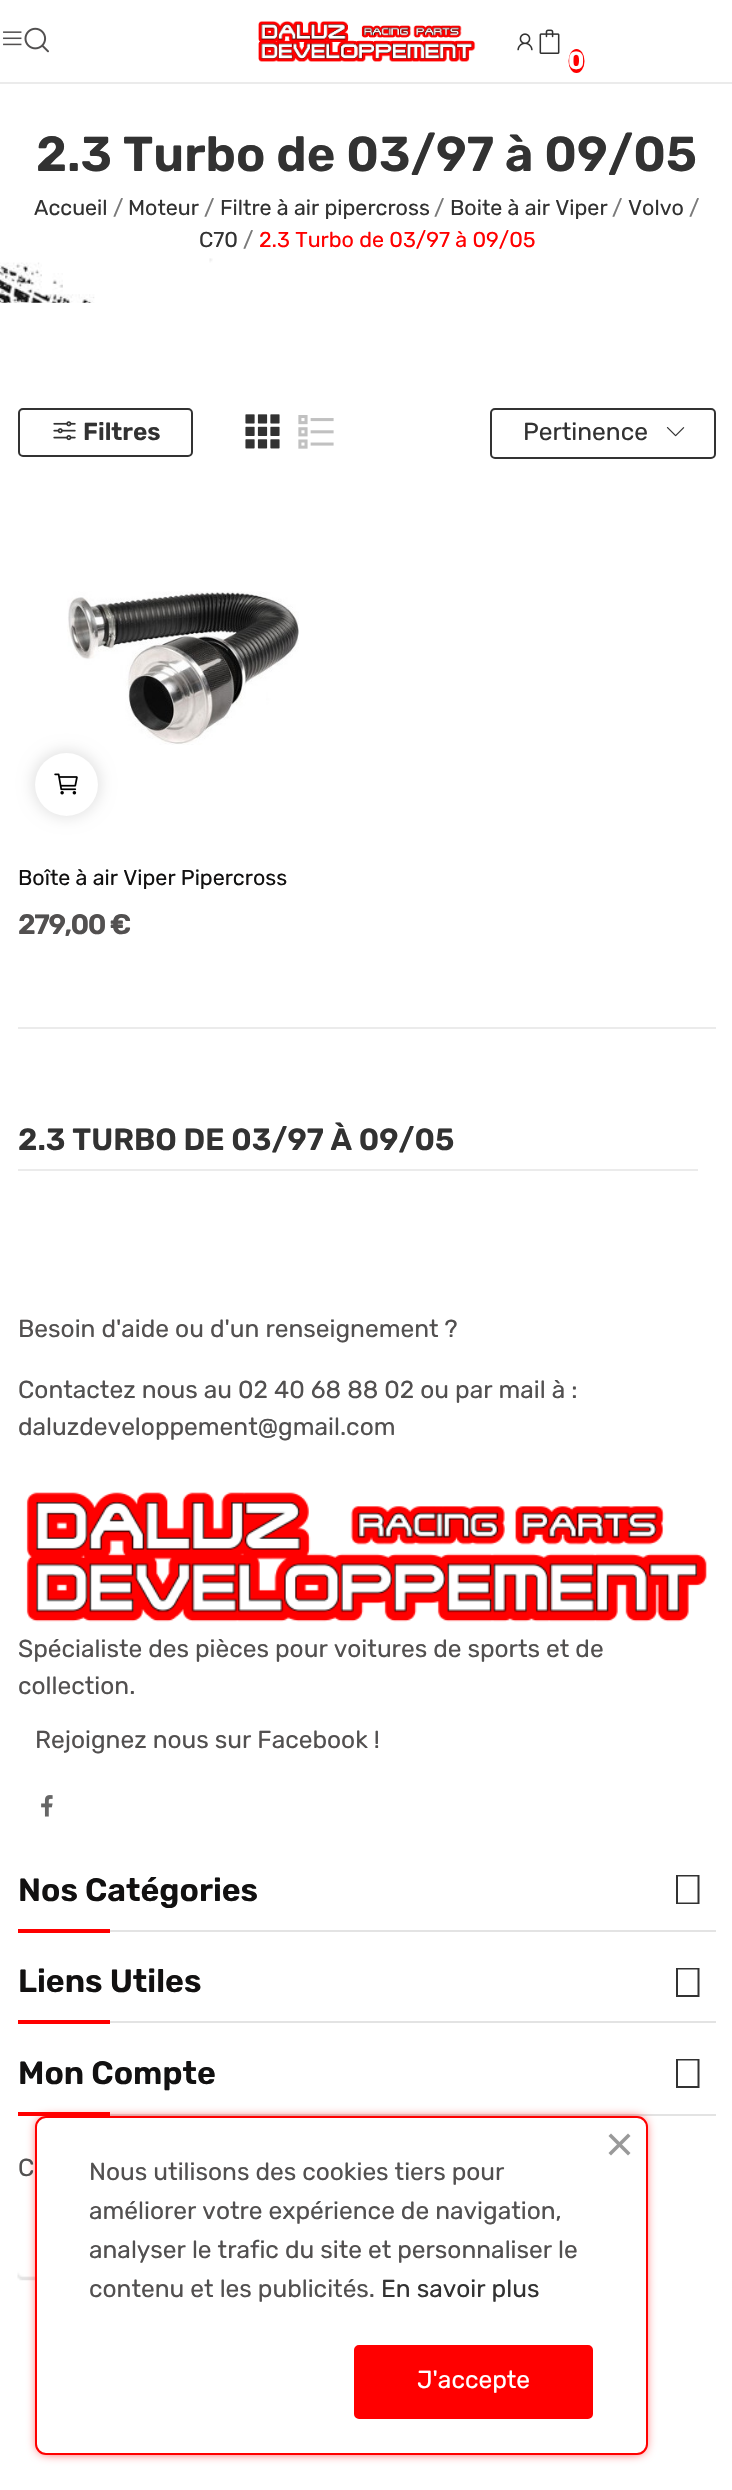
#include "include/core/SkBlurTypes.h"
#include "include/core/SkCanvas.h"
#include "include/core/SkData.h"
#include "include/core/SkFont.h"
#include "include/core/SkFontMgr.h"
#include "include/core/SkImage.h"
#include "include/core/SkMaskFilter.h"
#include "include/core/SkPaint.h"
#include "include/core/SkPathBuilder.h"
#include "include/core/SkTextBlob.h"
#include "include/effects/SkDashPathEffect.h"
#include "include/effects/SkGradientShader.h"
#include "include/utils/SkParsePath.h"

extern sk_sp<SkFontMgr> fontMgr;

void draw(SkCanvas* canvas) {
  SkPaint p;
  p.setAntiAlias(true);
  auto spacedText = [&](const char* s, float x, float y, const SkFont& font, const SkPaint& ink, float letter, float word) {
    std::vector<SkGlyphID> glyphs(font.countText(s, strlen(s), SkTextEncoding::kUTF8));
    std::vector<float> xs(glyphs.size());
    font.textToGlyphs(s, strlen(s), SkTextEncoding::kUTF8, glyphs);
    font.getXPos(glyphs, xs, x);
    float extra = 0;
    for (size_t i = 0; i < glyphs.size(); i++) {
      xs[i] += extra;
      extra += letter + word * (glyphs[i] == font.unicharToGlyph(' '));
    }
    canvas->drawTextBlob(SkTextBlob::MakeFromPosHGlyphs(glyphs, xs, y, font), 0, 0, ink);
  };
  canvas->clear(SK_ColorWHITE);
  p.setColor(SkColorSetRGB(235, 235, 235));
  canvas->drawRect(SkRect::MakeLTRB(0, 82, 732, 84), p);
  canvas->drawImageRect(SkImages::DeferredFromEncodedData(SkData::MakeFromFileName("images/1.png")), SkRect::MakeLTRB(3, 31, 22, 46), SkSamplingOptions());
  canvas->drawImageRect(SkImages::DeferredFromEncodedData(SkData::MakeFromFileName("images/2.png")), SkRect::MakeLTRB(24, 27, 49, 53), SkSamplingOptions());
  canvas->drawImageRect(SkImages::DeferredFromEncodedData(SkData::MakeFromFileName("images/3.png")), SkRect::MakeLTRB(258, 21, 476, 62), SkSamplingOptions());
  canvas->drawImageRect(SkImages::DeferredFromEncodedData(SkData::MakeFromFileName("images/4.png")), SkRect::MakeLTRB(517, 33, 533, 51), SkSamplingOptions());
  canvas->drawImageRect(SkImages::DeferredFromEncodedData(SkData::MakeFromFileName("images/5.png")), SkRect::MakeLTRB(539, 29, 560, 54), SkSamplingOptions());
  p.setColor(SkColorSetRGB(255, 0, 0));
  canvas->drawOval(SkRect::MakeLTRB(568.5f, 49, 584.5f, 73), p);
  canvas->drawImageRect(SkImages::DeferredFromEncodedData(SkData::MakeFromFileName("images/6.png")), SkRect::MakeLTRB(0, 258, 213, 303), SkSamplingOptions());
  p.setStyle(SkPaint::kStroke_Style);
  p.setStrokeWidth(2);
  p.setColor(SkColorSetRGB(50, 50, 50));
  canvas->drawRoundRect(SkRect::MakeLTRB(19, 409, 192, 456), 4, 4, p);
  canvas->drawImageRect(SkImages::DeferredFromEncodedData(SkData::MakeFromFileName("images/7.png")), SkRect::MakeLTRB(53, 421, 76, 441), SkSamplingOptions());
  canvas->drawImageRect(SkImages::DeferredFromEncodedData(SkData::MakeFromFileName("images/8.png")), SkRect::MakeLTRB(245, 414, 280, 449), SkSamplingOptions());
  canvas->drawImageRect(SkImages::DeferredFromEncodedData(SkData::MakeFromFileName("images/9.png")), SkRect::MakeLTRB(298, 415, 334, 449), SkSamplingOptions());
  canvas->drawRoundRect(SkRect::MakeLTRB(491, 409, 715, 458), 4, 4, p);
  canvas->drawImageRect(SkImages::DeferredFromEncodedData(SkData::MakeFromFileName("images/10.png")), SkRect::MakeLTRB(666, 427, 685, 437), SkSamplingOptions());
  canvas->drawImageRect(SkImages::DeferredFromEncodedData(SkData::MakeFromFileName("images/11.png")), SkRect::MakeLTRB(67, 591, 299, 745), SkSamplingOptions());
  p.setStyle(SkPaint::kFill_Style);
  p.setColor(SkColorSetARGB(31, 0, 0, 0));
  p.setMaskFilter(SkMaskFilter::MakeBlur(kNormal_SkBlurStyle, 7.5f));
  canvas->drawRoundRect(SkRect::MakeLTRB(33, 751, 100, 817), 33, 33, p);
  p.setMaskFilter(nullptr);
  p.setColor(SK_ColorWHITE);
  canvas->drawCircle(66.5f, 784.5f, 31.5f, p);
  canvas->drawImageRect(SkImages::DeferredFromEncodedData(SkData::MakeFromFileName("images/12.png")), SkRect::MakeLTRB(54, 773, 78, 795), SkSamplingOptions());
  p.setColor(SkColorSetRGB(235, 235, 235));
  canvas->drawRect(SkRect::MakeLTRB(18, 1027, 716, 1029), p);
  canvas->drawRect(SkRect::MakeLTRB(18, 1169, 698, 1171), p);
  canvas->drawImageRect(SkImages::DeferredFromEncodedData(SkData::MakeFromFileName("images/13.png")), SkRect::MakeLTRB(26, 1492, 707, 1622), SkSamplingOptions());
  canvas->drawImageRect(SkImages::DeferredFromEncodedData(SkData::MakeFromFileName("images/14.png")), SkRect::MakeLTRB(41, 1795, 53, 1817), SkSamplingOptions());
  p.setColor(SkColorSetRGB(227, 227, 227));
  canvas->drawRect(SkRect::MakeLTRB(110, 1930, 716, 1932), p);
  p.setColor(SkColorSetRGB(50, 50, 50));
  canvas->drawPath(SkPathBuilder().moveTo(676, 1875).lineTo(699.5f, 1875).lineTo(699.5f, 1904).lineTo(676, 1904).close().moveTo(678, 1876.5f).lineTo(678, 1902.5f).lineTo(697.5f, 1902.5f).lineTo(697.5f, 1876.5f).close().detach(), p);
  p.setColor(SkColorSetRGB(255, 0, 0));
  canvas->drawRect(SkRect::MakeLTRB(18, 1929, 110, 1933), p);
  p.setColor(SkColorSetRGB(227, 227, 227));
  canvas->drawRect(SkRect::MakeLTRB(110, 2021, 716, 2023), p);
  p.setColor(SkColorSetRGB(50, 50, 50));
  canvas->drawPath(SkPathBuilder().moveTo(676, 1968).lineTo(699.5f, 1968).lineTo(699.5f, 1997).lineTo(676, 1997).close().moveTo(678, 1969.5f).lineTo(678, 1995).lineTo(697.5f, 1995).lineTo(697.5f, 1969.5f).close().detach(), p);
  p.setColor(SkColorSetRGB(255, 0, 0));
  canvas->drawRect(SkRect::MakeLTRB(18, 2020, 110, 2024), p);
  p.setColor(SkColorSetRGB(227, 227, 227));
  canvas->drawRect(SkRect::MakeLTRB(110, 2114, 716, 2116), p);
  p.setColor(SkColorSetRGB(50, 50, 50));
  canvas->drawPath(SkPathBuilder().moveTo(676, 2059).lineTo(699.5f, 2059).lineTo(699.5f, 2088).lineTo(676, 2088).close().moveTo(678, 2060.5f).lineTo(678, 2086).lineTo(697.5f, 2086).lineTo(697.5f, 2060.5f).close().detach(), p);
  p.setColor(SkColorSetRGB(255, 0, 0));
  canvas->drawRect(SkRect::MakeLTRB(18, 2112, 110, 2116), p);
  canvas->drawImageRect(SkImages::DeferredFromEncodedData(SkData::MakeFromFileName("images/15.png")), SkRect::MakeLTRB(17, 2232, 35, 2281), SkSamplingOptions());
  p.setMaskFilter(SkMaskFilter::MakeBlur(kNormal_SkBlurStyle, 6));
  canvas->drawRoundRect(SkRect::MakeLTRB(39, 2119, 644, 2452), 7, 7, p);
  p.setMaskFilter(nullptr);
  p.setColor(SK_ColorWHITE);
  canvas->drawRoundRect(SkRect::MakeLTRB(36, 2117, 647, 2454), 10, 10, p);
  p.setStyle(SkPaint::kStroke_Style);
  p.setColor(SkColorSetRGB(255, 0, 0));
  canvas->drawRoundRect(SkRect::MakeLTRB(36, 2117, 647, 2454), 10, 10, p);
  p.setStyle(SkPaint::kFill_Style);
  p.setColor(SkColorSetRGB(153, 153, 153));
  canvas->drawPath(SkPathBuilder().moveTo(608.5f, 2153).lineTo(628, 2133.5f).lineTo(630.5f, 2136).lineTo(611, 2155.5f).close().detach(), p);
  canvas->drawPath(SkPathBuilder().moveTo(611, 2133.5f).lineTo(630.5f, 2153).lineTo(628, 2155.5f).lineTo(608.5f, 2136).close().detach(), p);
  p.setColor(SkColorSetRGB(255, 0, 0));
  canvas->drawRoundRect(SkRect::MakeLTRB(355, 2346, 592, 2418), 4, 4, p);
  p.setStyle(SkPaint::kStroke_Style);
  canvas->drawRoundRect(SkRect::MakeLTRB(355, 2346, 592, 2418), 4, 4, p);
  SkFont font1(fontMgr->matchFamilyStyle("Rubik", SkFontStyle(600, SkFontStyle::kNormal_Width, SkFontStyle::kUpright_Slant)), 24.5f);
  font1.setSubpixel(true);
  p.setStyle(SkPaint::kFill_Style);
  p.setColor(SK_ColorWHITE);
  canvas->drawString("0", 568, 69, font1, p);
  SkFont font2(fontMgr->matchFamilyStyle("Rubik", SkFontStyle(600, SkFontStyle::kNormal_Width, SkFontStyle::kUpright_Slant)), 49);
  font2.setSubpixel(true);
  p.setColor(SkColorSetRGB(50, 50, 50));
  canvas->drawString("2.3 Turbo de 03/97 à 09/05", 36, 171, font2, p);
  SkFont font3(fontMgr->matchFamilyStyle("Rubik", SkFontStyle::Normal()), 21.5f);
  font3.setSubpixel(true);
  canvas->drawString("Accueil", 34, 215, font3, p);
  p.setColor(SkColorSetRGB(122, 122, 122));
  canvas->drawString("/", 113, 215, font3, p);
  p.setColor(SkColorSetRGB(50, 50, 50));
  canvas->drawString("Moteur", 128, 215, font3, p);
  p.setColor(SkColorSetRGB(122, 122, 122));
  canvas->drawString("/", 204, 215, font3, p);
  p.setColor(SkColorSetRGB(50, 50, 50));
  canvas->drawString("Filtre à air pipercross", 220, 215, font3, p);
  p.setColor(SkColorSetRGB(122, 122, 122));
  canvas->drawString("/", 434, 215, font3, p);
  p.setColor(SkColorSetRGB(50, 50, 50));
  canvas->drawString("Boite à air Viper", 450, 215, font3, p);
  p.setColor(SkColorSetRGB(122, 122, 122));
  canvas->drawString("/", 612, 215, font3, p);
  p.setColor(SkColorSetRGB(50, 50, 50));
  canvas->drawString("Volvo", 628, 215, font3, p);
  p.setColor(SkColorSetRGB(122, 122, 122));
  canvas->drawString("/", 689, 215, font3, p);
  p.setColor(SkColorSetRGB(50, 50, 50));
  canvas->drawString("C70", 199, 247, font3, p);
  p.setColor(SkColorSetRGB(122, 122, 122));
  canvas->drawString("/", 243, 247, font3, p);
  p.setColor(SkColorSetRGB(255, 0, 0));
  canvas->drawString("2.3 Turbo de 03/97 à 09/05", 259, 247, font3, p);
  p.setColor(SkColorSetRGB(50, 50, 50));
  canvas->drawString("Filtres", 83, 440, font1, p);
  SkFont font4(fontMgr->matchFamilyStyle("Rubik", SkFontStyle::Normal()), 24.5f);
  font4.setSubpixel(true);
  canvas->drawString("Pertinence", 523, 440, font4, p);
  p.setColor(SkColorSetRGB(18, 17, 17));
  canvas->drawString("Boîte à air Viper Pipercross", 18, 885, font3, p);
  SkFont font5(fontMgr->matchFamilyStyle("Rubik", SkFontStyle(600, SkFontStyle::kNormal_Width, SkFontStyle::kUpright_Slant)), 28);
  font5.setSubpixel(true);
  p.setColor(SkColorSetRGB(82, 80, 80));
  spacedText("279,00 €", 18, 934, font5, p, -1.5f, 0);
  SkFont font6(fontMgr->matchFamilyStyle("Rubik", SkFontStyle(600, SkFontStyle::kNormal_Width, SkFontStyle::kUpright_Slant)), 30.6f);
  font6.setSubpixel(true);
  p.setColor(SkColorSetRGB(50, 50, 50));
  canvas->drawString("2.3 TURBO DE 03/97 À 09/05", 18, 1150, font6, p);
  p.setColor(SkColorSetRGB(82, 80, 80));
  canvas->drawString("Besoin d'aide ou d'un renseignement ?", 18, 1337, font4, p);
  canvas->drawString("Contactez nous au 02 40 68 88 02 ou par mail à :", 18, 1398, font4, p);
  canvas->drawString("daluzdeveloppement@gmail.com", 18, 1435, font4, p);
  canvas->drawString("Spécialiste des pièces pour voitures de sports et de", 18, 1657, font4, p);
  canvas->drawString("collection.", 18, 1694, font4, p);
  canvas->drawString("Rejoignez nous sur Facebook !", 35, 1748, font4, p);
  SkFont font7(fontMgr->matchFamilyStyle("Rubik", SkFontStyle(600, SkFontStyle::kNormal_Width, SkFontStyle::kUpright_Slant)), 32.25f);
  font7.setSubpixel(true);
  p.setColor(SkColorSetRGB(18, 17, 17));
  canvas->drawString("Nos Catégories", 18, 1901, font7, p);
  canvas->drawString("Liens Utiles", 18, 1992, font7, p);
  canvas->drawString("Mon Compte", 18, 2084, font7, p);
  p.setColor(SkColorSetRGB(82, 80, 80));
  canvas->drawString("C", 18, 2176, font4, p);
  canvas->drawString("Nous utilisons des cookies tiers pour", 89, 2180, font4, p);
  canvas->drawString("améliorer votre expérience de navigation,", 89, 2219, font4, p);
  canvas->drawString("analyser le trafic du site et personnaliser le", 89, 2258, font4, p);
  canvas->drawString("contenu et les publicités.", 89, 2297, font4, p);
  p.setColor(SkColorSetRGB(50, 50, 50));
  canvas->drawString("En savoir plus", 381, 2297, font4, p);
  p.setColor(SK_ColorWHITE);
  canvas->drawString("J'accepte", 417, 2388, font4, p);
}
